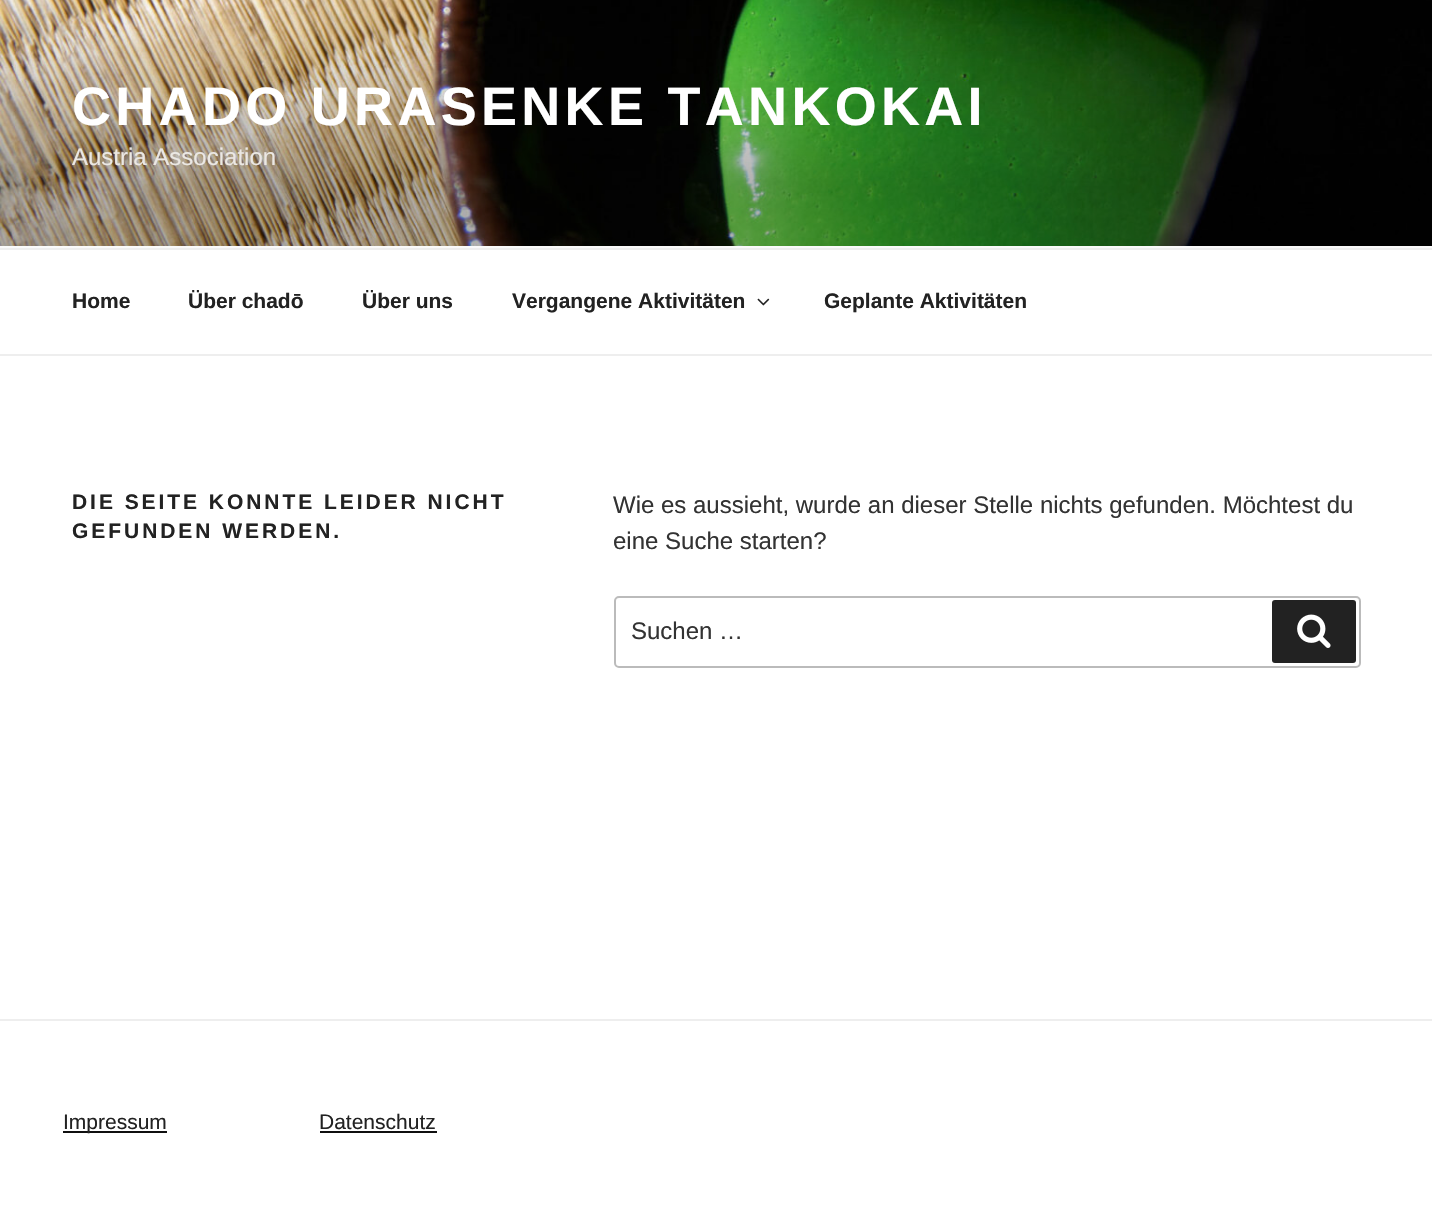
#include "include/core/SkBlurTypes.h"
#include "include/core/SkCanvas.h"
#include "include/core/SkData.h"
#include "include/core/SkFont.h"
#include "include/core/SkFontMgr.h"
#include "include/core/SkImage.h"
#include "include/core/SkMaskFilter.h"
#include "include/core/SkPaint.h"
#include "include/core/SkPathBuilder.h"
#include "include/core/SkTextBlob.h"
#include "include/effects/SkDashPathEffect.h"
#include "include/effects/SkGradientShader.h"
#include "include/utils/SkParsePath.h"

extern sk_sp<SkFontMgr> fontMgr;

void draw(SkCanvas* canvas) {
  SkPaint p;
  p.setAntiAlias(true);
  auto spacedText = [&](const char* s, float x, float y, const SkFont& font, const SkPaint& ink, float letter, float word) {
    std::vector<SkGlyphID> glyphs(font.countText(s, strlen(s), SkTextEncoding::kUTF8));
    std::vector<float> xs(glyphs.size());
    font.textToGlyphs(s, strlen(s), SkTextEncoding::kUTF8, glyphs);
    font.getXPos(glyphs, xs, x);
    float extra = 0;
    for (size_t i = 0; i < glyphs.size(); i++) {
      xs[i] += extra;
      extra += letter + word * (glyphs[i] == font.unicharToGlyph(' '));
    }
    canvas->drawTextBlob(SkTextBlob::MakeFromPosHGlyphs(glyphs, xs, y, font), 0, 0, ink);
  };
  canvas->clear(SK_ColorWHITE);
  p.setColor(SkColorSetRGB(250, 250, 250));
  canvas->drawRect(SkRect::MakeLTRB(0, 246, 1432, 248), p);
  canvas->drawImageRect(SkImages::DeferredFromEncodedData(SkData::MakeFromFileName("images/1.png")), SkRect::MakeLTRB(0, 0, 1432, 246), SkSamplingOptions());
  p.setColor(SkColorSetRGB(238, 238, 238));
  canvas->drawRect(SkRect::MakeLTRB(0, 248, 1432, 250), p);
  canvas->drawRect(SkRect::MakeLTRB(0, 354, 1432, 356), p);
  canvas->drawImageRect(SkImages::DeferredFromEncodedData(SkData::MakeFromFileName("images/2.png")), SkRect::MakeLTRB(757, 298, 770, 306), SkSamplingOptions());
  p.setStyle(SkPaint::kStroke_Style);
  p.setStrokeWidth(2);
  p.setColor(SkColorSetRGB(187, 187, 187));
  canvas->drawRoundRect(SkRect::MakeLTRB(615, 597, 1360, 667), 4, 4, p);
  p.setStyle(SkPaint::kFill_Style);
  p.setColor(SkColorSetRGB(34, 34, 34));
  canvas->drawRoundRect(SkRect::MakeLTRB(1272, 600, 1356, 663), 3, 3, p);
  canvas->drawImageRect(SkImages::DeferredFromEncodedData(SkData::MakeFromFileName("images/3.png")), SkRect::MakeLTRB(1297, 614, 1331, 648), SkSamplingOptions());
  p.setColor(SkColorSetRGB(238, 238, 238));
  canvas->drawRect(SkRect::MakeLTRB(0, 1019, 1432, 1021), p);
  p.setColor(SkColorSetRGB(15, 15, 15));
  canvas->drawRect(SkRect::MakeLTRB(63, 1131, 167, 1133), p);
  canvas->drawRect(SkRect::MakeLTRB(320, 1131, 437, 1133), p);
  SkFont font1(fontMgr->matchFamilyStyle("Liberation Sans", SkFontStyle::Bold()), 54);
  font1.setSubpixel(true);
  p.setColor(SK_ColorWHITE);
  spacedText("CHADO URASENKE TANKOKAI", 72, 125, font1, p, 4.3f, 0);
  SkFont font2(fontMgr->matchFamilyStyle("Liberation Sans", SkFontStyle::Normal()), 24);
  font2.setSubpixel(true);
  p.setColor(SkColorSetRGB(235, 232, 228));
  canvas->drawString("Austria Association", 72, 165, font2, p);
  SkFont font3(fontMgr->matchFamilyStyle("Liberation Sans", SkFontStyle::Bold()), 21);
  font3.setSubpixel(true);
  p.setColor(SkColorSetRGB(34, 34, 34));
  canvas->drawString("Home", 72, 308, font3, p);
  canvas->drawString("Über chadō", 188, 308, font3, p);
  canvas->drawString("Über uns", 362, 308, font3, p);
  canvas->drawString("Vergangene Aktivitäten", 512, 308, font3, p);
  canvas->drawString("Geplante Aktivitäten", 824, 308, font3, p);
  spacedText("DIE SEITE KONNTE LEIDER NICHT", 72, 509, font3, p, 2.95f, 0);
  spacedText("GEFUNDEN WERDEN.", 72, 538, font3, p, 2.95f, 0);
  p.setColor(SkColorSetRGB(51, 51, 51));
  canvas->drawString("Wie es aussieht, wurde an dieser Stelle nichts gefunden. Möchtest du", 613, 513, font2, p);
  canvas->drawString("eine Suche starten?", 613, 549, font2, p);
  canvas->drawString("Suchen …", 631, 639, font2, p);
  SkFont font4(fontMgr->matchFamilyStyle("Liberation Sans", SkFontStyle::Normal()), 21);
  font4.setSubpixel(true);
  p.setColor(SkColorSetRGB(34, 34, 34));
  canvas->drawString("Impressum", 63, 1129, font4, p);
  canvas->drawString("Datenschutz", 319, 1129, font4, p);
}
